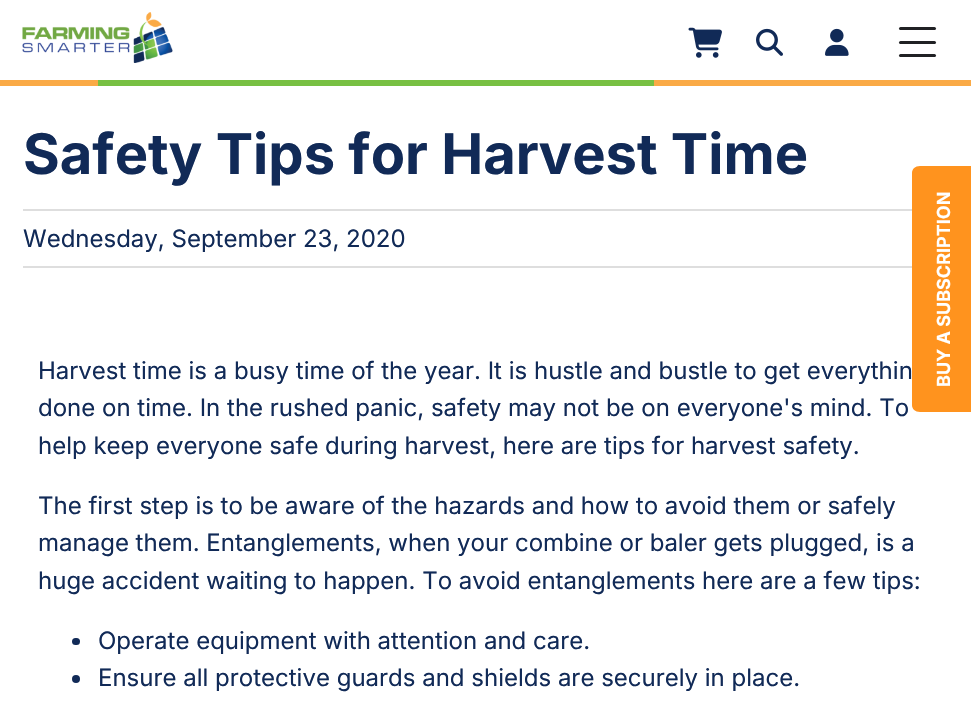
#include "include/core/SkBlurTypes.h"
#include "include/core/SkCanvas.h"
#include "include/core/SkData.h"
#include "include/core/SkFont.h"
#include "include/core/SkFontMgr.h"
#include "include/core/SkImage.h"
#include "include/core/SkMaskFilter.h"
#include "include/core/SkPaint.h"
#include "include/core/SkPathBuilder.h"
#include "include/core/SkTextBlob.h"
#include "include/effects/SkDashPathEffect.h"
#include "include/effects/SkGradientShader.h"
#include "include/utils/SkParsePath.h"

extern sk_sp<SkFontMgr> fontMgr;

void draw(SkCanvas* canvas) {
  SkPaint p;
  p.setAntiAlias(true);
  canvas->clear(SK_ColorWHITE);
  p.setColor(SkColorSetRGB(222, 222, 222));
  canvas->drawRect(SkRect::MakeLTRB(23, 209, 912, 211), p);
  canvas->drawRect(SkRect::MakeLTRB(23, 266, 912, 268), p);
  p.setColor(SkColorSetRGB(17, 42, 87));
  canvas->drawRoundRect(SkRect::MakeLTRB(72, 638, 80, 645), 3.5f, 3.5f, p);
  canvas->drawCircle(76, 679, 4, p);
  p.setColor(SkColorSetRGB(250, 170, 70));
  canvas->drawRect(SkRect::MakeLTRB(0, 80, 971, 86), p);
  p.setColor(SkColorSetRGB(120, 192, 67));
  canvas->drawRect(SkRect::MakeLTRB(98, 80, 654, 86), p);
  canvas->drawImageRect(SkImages::DeferredFromEncodedData(SkData::MakeFromFileName("images/1.png")), SkRect::MakeLTRB(22, 12, 173, 63), SkSamplingOptions());
  p.setColor(SkColorSetRGB(32, 33, 36));
  canvas->drawRoundRect(SkRect::MakeLTRB(899, 27, 936, 30), 1.5f, 1.5f, p);
  canvas->drawRoundRect(SkRect::MakeLTRB(899, 41, 936, 44), 1.5f, 1.5f, p);
  canvas->drawRoundRect(SkRect::MakeLTRB(899, 54, 936, 57), 1.5f, 1.5f, p);
  canvas->drawImageRect(SkImages::DeferredFromEncodedData(SkData::MakeFromFileName("images/2.png")), SkRect::MakeLTRB(688, 27, 722, 58), SkSamplingOptions());
  canvas->drawImageRect(SkImages::DeferredFromEncodedData(SkData::MakeFromFileName("images/3.png")), SkRect::MakeLTRB(756, 28, 783, 56), SkSamplingOptions());
  canvas->drawImageRect(SkImages::DeferredFromEncodedData(SkData::MakeFromFileName("images/4.png")), SkRect::MakeLTRB(825, 28, 849, 56), SkSamplingOptions());
  p.setColor(SkColorSetRGB(255, 147, 30));
  canvas->drawPath(SkPathBuilder().moveTo(912, 405).lineTo(912, 173).cubicTo(912, 169, 915, 166, 920, 166).lineTo(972, 166).lineTo(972, 412).lineTo(920, 412).cubicTo(915, 412, 912, 409, 912, 405).close().detach(), p);
  SkFont font1(fontMgr->matchFamilyStyle("Inter", SkFontStyle::Bold()), 56.1f);
  font1.setSubpixel(true);
  p.setColor(SkColorSetRGB(17, 42, 87));
  canvas->drawString("Safety Tips for Harvest Time", 23, 174, font1, p);
  SkFont font2(fontMgr->matchFamilyStyle("Inter", SkFontStyle::Normal()), 24);
  font2.setSubpixel(true);
  canvas->drawString("Wednesday, September 23, 2020", 23, 247, font2, p);
  canvas->drawString("Harvest time is a busy time of the year. It is hustle and bustle to get everythin", 38, 379, font2, p);
  canvas->drawString("done on time. In the rushed panic, safety may not be on everyone's mind. To", 38, 416, font2, p);
  canvas->drawString("help keep everyone safe during harvest, here are tips for harvest safety.", 38, 454, font2, p);
  canvas->drawString("The first step is to be aware of the hazards and how to avoid them or safely", 38, 514, font2, p);
  canvas->drawString("manage them. Entanglements, when your combine or baler gets plugged, is a", 38, 551, font2, p);
  canvas->drawString("huge accident waiting to happen. To avoid entanglements here are a few tips:", 38, 589, font2, p);
  canvas->drawString("Operate equipment with attention and care.", 98, 649, font2, p);
  canvas->drawString("Ensure all protective guards and shields are securely in place.", 98, 686, font2, p);
  SkFont font3(fontMgr->matchFamilyStyle("Inter", SkFontStyle::Bold()), 18);
  font3.setSubpixel(true);
  p.setColor(SK_ColorWHITE);
  canvas->save();
  canvas->rotate(-90, 950, 387);
  canvas->drawString("BUY A SUBSCRIPTION", 950, 387, font3, p);
  canvas->restore();
}
